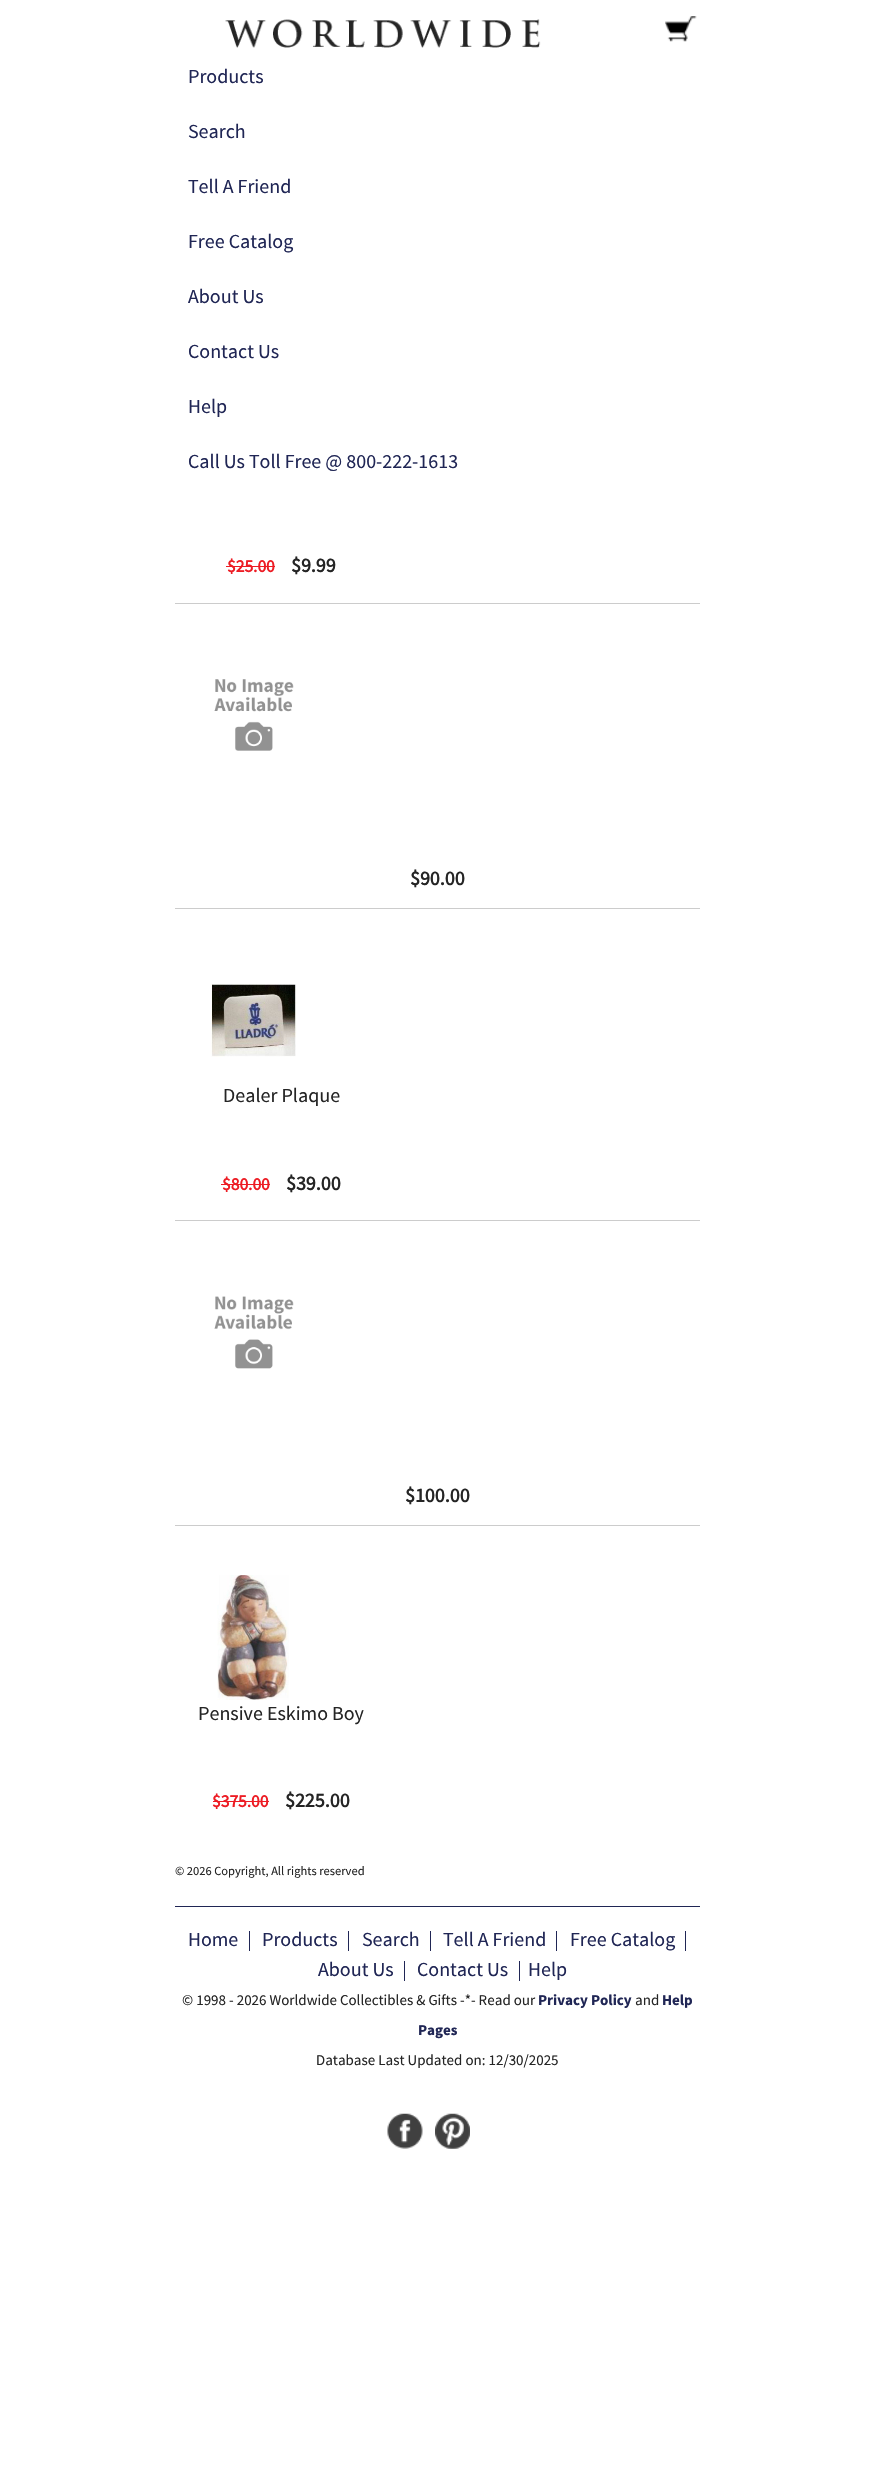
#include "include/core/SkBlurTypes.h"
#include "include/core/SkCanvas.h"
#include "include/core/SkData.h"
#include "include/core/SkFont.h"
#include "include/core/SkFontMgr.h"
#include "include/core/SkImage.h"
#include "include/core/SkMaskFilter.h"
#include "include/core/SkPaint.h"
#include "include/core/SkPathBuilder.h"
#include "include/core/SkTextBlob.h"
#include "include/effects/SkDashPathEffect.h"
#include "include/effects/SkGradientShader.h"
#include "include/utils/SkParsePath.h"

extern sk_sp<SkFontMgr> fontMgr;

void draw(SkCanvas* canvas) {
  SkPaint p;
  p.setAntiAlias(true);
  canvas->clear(SK_ColorWHITE);
  canvas->drawImageRect(SkImages::DeferredFromEncodedData(SkData::MakeFromFileName("images/1.png")), SkRect::MakeLTRB(225, 19, 541, 48), SkSamplingOptions());
  canvas->drawImageRect(SkImages::DeferredFromEncodedData(SkData::MakeFromFileName("images/2.png")), SkRect::MakeLTRB(665, 16, 697, 42), SkSamplingOptions());
  p.setColor(SkColorSetRGB(237, 28, 36));
  canvas->drawRect(SkRect::MakeLTRB(226, 566, 275, 567), p);
  p.setColor(SkColorSetRGB(204, 204, 204));
  canvas->drawRect(SkRect::MakeLTRB(175, 603, 700, 604), p);
  canvas->drawImageRect(SkImages::DeferredFromEncodedData(SkData::MakeFromFileName("images/3.png")), SkRect::MakeLTRB(214, 679, 294, 751), SkSamplingOptions());
  canvas->drawRect(SkRect::MakeLTRB(175, 908, 700, 909), p);
  canvas->drawImageRect(SkImages::DeferredFromEncodedData(SkData::MakeFromFileName("images/4.png")), SkRect::MakeLTRB(210, 984, 297, 1057), SkSamplingOptions());
  p.setColor(SkColorSetRGB(237, 28, 36));
  canvas->drawRect(SkRect::MakeLTRB(221, 1184, 270, 1185), p);
  p.setColor(SkColorSetRGB(204, 204, 204));
  canvas->drawRect(SkRect::MakeLTRB(175, 1220, 700, 1221), p);
  canvas->drawImageRect(SkImages::DeferredFromEncodedData(SkData::MakeFromFileName("images/5.png")), SkRect::MakeLTRB(214, 1296, 294, 1369), SkSamplingOptions());
  canvas->drawRect(SkRect::MakeLTRB(175, 1525, 700, 1526), p);
  canvas->drawImageRect(SkImages::DeferredFromEncodedData(SkData::MakeFromFileName("images/6.png")), SkRect::MakeLTRB(217, 1575, 289, 1700), SkSamplingOptions());
  p.setColor(SkColorSetRGB(237, 28, 36));
  canvas->drawRect(SkRect::MakeLTRB(213, 1801, 269, 1802), p);
  p.setColor(SkColorSetRGB(32, 38, 85));
  canvas->drawRect(SkRect::MakeLTRB(175, 1906, 700, 1907), p);
  canvas->drawRect(SkRect::MakeLTRB(249, 1931, 250, 1951), p);
  canvas->drawRect(SkRect::MakeLTRB(348, 1931, 349, 1951), p);
  canvas->drawRect(SkRect::MakeLTRB(430, 1931, 431, 1951), p);
  canvas->drawRect(SkRect::MakeLTRB(556, 1931, 557, 1951), p);
  canvas->drawRect(SkRect::MakeLTRB(685, 1931, 686, 1951), p);
  canvas->drawRect(SkRect::MakeLTRB(404, 1961, 405, 1981), p);
  canvas->drawRect(SkRect::MakeLTRB(519, 1961, 520, 1981), p);
  canvas->drawImageRect(SkImages::DeferredFromEncodedData(SkData::MakeFromFileName("images/7.png")), SkRect::MakeLTRB(387, 2113, 423, 2149), SkSamplingOptions());
  canvas->drawImageRect(SkImages::DeferredFromEncodedData(SkData::MakeFromFileName("images/8.png")), SkRect::MakeLTRB(435, 2113, 470, 2149), SkSamplingOptions());
  SkFont font1(fontMgr->matchFamilyStyle("Source Sans Pro", SkFontStyle::Normal()), 20);
  font1.setSubpixel(true);
  canvas->drawString("Products", 188, 83, font1, p);
  canvas->drawString("Search", 188, 138, font1, p);
  canvas->drawString("Tell A Friend", 188, 193, font1, p);
  canvas->drawString("Free Catalog", 188, 248, font1, p);
  canvas->drawString("About Us", 188, 303, font1, p);
  canvas->drawString("Contact Us", 188, 358, font1, p);
  canvas->drawString("Help", 188, 413, font1, p);
  canvas->drawString("Call Us Toll Free @ 800-222-1613", 188, 468, font1, p);
  SkFont font2(fontMgr->matchFamilyStyle("Source Sans Pro", SkFontStyle::Bold()), 17.5f);
  font2.setSubpixel(true);
  p.setColor(SkColorSetRGB(237, 28, 36));
  canvas->drawString("$25.00", 227, 572, font2, p);
  SkFont font3(fontMgr->matchFamilyStyle("Source Sans Pro", SkFontStyle::Bold()), 20);
  font3.setSubpixel(true);
  p.setColor(SkColorSetRGB(37, 37, 37));
  canvas->drawString("$9.99", 291, 572, font3, p);
  canvas->drawString("$90.00", 410, 885, font3, p);
  canvas->drawString("Dealer Plaque", 223, 1102, font1, p);
  p.setColor(SkColorSetRGB(237, 28, 36));
  canvas->drawString("$80.00", 222, 1190, font2, p);
  p.setColor(SkColorSetRGB(37, 37, 37));
  canvas->drawString("$39.00", 286, 1190, font3, p);
  canvas->drawString("$100.00", 405, 1502, font3, p);
  canvas->drawString("Pensive Eskimo Boy", 198, 1720, font1, p);
  p.setColor(SkColorSetRGB(237, 28, 36));
  canvas->drawString("$375.00", 212, 1807, font2, p);
  p.setColor(SkColorSetRGB(37, 37, 37));
  canvas->drawString("$225.00", 285, 1807, font3, p);
  SkFont font4(fontMgr->matchFamilyStyle("Source Sans Pro", SkFontStyle::Normal()), 12.5f);
  font4.setSubpixel(true);
  canvas->drawString("© 2026 Copyright, All rights reserved", 175, 1875, font4, p);
  p.setColor(SkColorSetRGB(32, 38, 85));
  canvas->drawString("Home", 188, 1946, font1, p);
  canvas->drawString("Products", 262, 1946, font1, p);
  canvas->drawString("Search", 362, 1946, font1, p);
  canvas->drawString("Tell A Friend", 443, 1946, font1, p);
  canvas->drawString("Free Catalog", 570, 1946, font1, p);
  canvas->drawString("About Us", 318, 1976, font1, p);
  canvas->drawString("Contact Us", 417, 1976, font1, p);
  canvas->drawString("Help", 528, 1976, font1, p);
  SkFont font5(fontMgr->matchFamilyStyle("Source Sans Pro", SkFontStyle::Normal()), 15);
  font5.setSubpixel(true);
  p.setColor(SkColorSetRGB(37, 37, 37));
  canvas->drawString("© 1998 - 2026 Worldwide Collectibles & Gifts -*- Read our", 182, 2005, font5, p);
  SkFont font6(fontMgr->matchFamilyStyle("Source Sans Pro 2", SkFontStyle::Bold()), 15);
  font6.setSubpixel(true);
  p.setColor(SkColorSetRGB(32, 38, 85));
  canvas->drawString("Privacy Policy", 538, 2005, font6, p);
  p.setColor(SkColorSetRGB(37, 37, 37));
  canvas->drawString("and", 635, 2005, font5, p);
  p.setColor(SkColorSetRGB(32, 38, 85));
  canvas->drawString("Help", 662, 2005, font6, p);
  canvas->drawString("Pages", 418, 2035, font6, p);
  p.setColor(SkColorSetRGB(37, 37, 37));
  canvas->drawString("Database Last Updated on: 12/30/2025", 316, 2065, font5, p);
}
